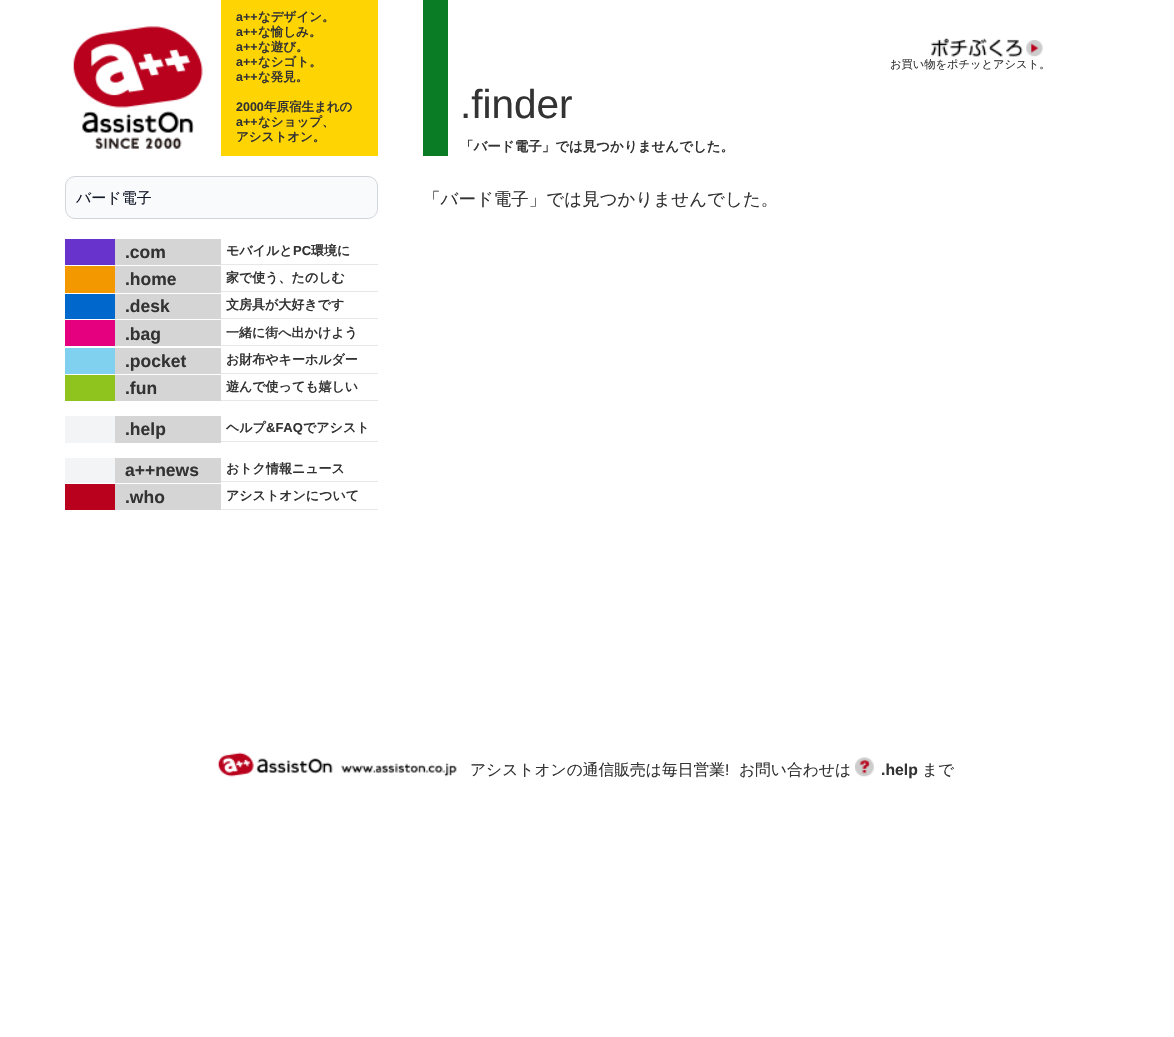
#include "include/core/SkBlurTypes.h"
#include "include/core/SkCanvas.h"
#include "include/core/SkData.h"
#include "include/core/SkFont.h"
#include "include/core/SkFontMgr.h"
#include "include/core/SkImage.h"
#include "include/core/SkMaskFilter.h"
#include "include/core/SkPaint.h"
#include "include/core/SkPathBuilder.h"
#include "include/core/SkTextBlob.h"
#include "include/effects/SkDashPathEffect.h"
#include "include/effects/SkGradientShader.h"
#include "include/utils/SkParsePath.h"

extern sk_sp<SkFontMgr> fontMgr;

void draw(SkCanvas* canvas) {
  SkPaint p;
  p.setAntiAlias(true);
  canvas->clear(SK_ColorWHITE);
  canvas->drawImageRect(SkImages::DeferredFromEncodedData(SkData::MakeFromFileName("images/1.png")), SkRect::MakeLTRB(73, 26, 203, 149), SkSamplingOptions());
  p.setColor(SkColorSetRGB(255, 212, 3));
  canvas->drawRect(SkRect::MakeLTRB(221, 0, 378, 156), p);
  p.setColor(SkColorSetRGB(249, 250, 251));
  canvas->drawRoundRect(SkRect::MakeLTRB(65.5f, 176.5f, 377.5f, 218.5f), 9.5f, 9.5f, p);
  p.setStyle(SkPaint::kStroke_Style);
  p.setStrokeWidth(1);
  p.setColor(SkColorSetRGB(209, 213, 219));
  canvas->drawRoundRect(SkRect::MakeLTRB(65.5f, 176.5f, 377.5f, 218.5f), 9.5f, 9.5f, p);
  p.setStyle(SkPaint::kFill_Style);
  p.setColor(SkColorSetRGB(103, 51, 204));
  canvas->drawRect(SkRect::MakeLTRB(65, 239, 115, 265), p);
  p.setColor(SkColorSetRGB(213, 213, 213));
  canvas->drawRect(SkRect::MakeLTRB(115, 239, 221, 265), p);
  p.setColor(SkColorSetRGB(229, 231, 235));
  canvas->drawRect(SkRect::MakeLTRB(221, 264, 378, 265), p);
  p.setColor(SkColorSetRGB(244, 152, 0));
  canvas->drawRect(SkRect::MakeLTRB(65, 266, 115, 293), p);
  p.setColor(SkColorSetRGB(213, 213, 213));
  canvas->drawRect(SkRect::MakeLTRB(115, 266, 221, 293), p);
  p.setColor(SkColorSetRGB(229, 231, 235));
  canvas->drawRect(SkRect::MakeLTRB(221, 291, 378, 292), p);
  p.setColor(SkColorSetRGB(0, 103, 204));
  canvas->drawRect(SkRect::MakeLTRB(65, 294, 115, 319), p);
  p.setColor(SkColorSetRGB(213, 213, 213));
  canvas->drawRect(SkRect::MakeLTRB(115, 294, 221, 319), p);
  p.setColor(SkColorSetRGB(229, 231, 235));
  canvas->drawRect(SkRect::MakeLTRB(221, 318, 378, 319), p);
  p.setColor(SkColorSetRGB(228, 0, 127));
  canvas->drawRect(SkRect::MakeLTRB(65, 320, 115, 346), p);
  p.setColor(SkColorSetRGB(213, 213, 213));
  canvas->drawRect(SkRect::MakeLTRB(115, 320, 221, 346), p);
  p.setColor(SkColorSetRGB(229, 231, 235));
  canvas->drawRect(SkRect::MakeLTRB(221, 345, 378, 346), p);
  p.setColor(SkColorSetRGB(128, 208, 240));
  canvas->drawRect(SkRect::MakeLTRB(65, 348, 115, 374), p);
  p.setColor(SkColorSetRGB(213, 213, 213));
  canvas->drawRect(SkRect::MakeLTRB(115, 348, 221, 374), p);
  p.setColor(SkColorSetRGB(229, 231, 235));
  canvas->drawRect(SkRect::MakeLTRB(221, 373, 378, 374), p);
  p.setColor(SkColorSetRGB(143, 196, 31));
  canvas->drawRect(SkRect::MakeLTRB(65, 375, 115, 401), p);
  p.setColor(SkColorSetRGB(213, 213, 213));
  canvas->drawRect(SkRect::MakeLTRB(115, 375, 221, 401), p);
  p.setColor(SkColorSetRGB(229, 231, 235));
  canvas->drawRect(SkRect::MakeLTRB(221, 400, 378, 401), p);
  p.setColor(SkColorSetRGB(243, 244, 246));
  canvas->drawRect(SkRect::MakeLTRB(65, 416, 115, 443), p);
  p.setColor(SkColorSetRGB(213, 213, 213));
  canvas->drawRect(SkRect::MakeLTRB(115, 416, 221, 443), p);
  p.setColor(SkColorSetRGB(229, 231, 235));
  canvas->drawRect(SkRect::MakeLTRB(221, 441, 378, 442), p);
  p.setColor(SkColorSetRGB(243, 244, 246));
  canvas->drawRect(SkRect::MakeLTRB(65, 458, 115, 483), p);
  p.setColor(SkColorSetRGB(213, 213, 213));
  canvas->drawRect(SkRect::MakeLTRB(115, 458, 221, 483), p);
  p.setColor(SkColorSetRGB(229, 231, 235));
  canvas->drawRect(SkRect::MakeLTRB(221, 481, 378, 482), p);
  p.setColor(SkColorSetRGB(185, 0, 28));
  canvas->drawRect(SkRect::MakeLTRB(65, 484, 115, 510), p);
  p.setColor(SkColorSetRGB(213, 213, 213));
  canvas->drawRect(SkRect::MakeLTRB(115, 484, 221, 510), p);
  p.setColor(SkColorSetRGB(229, 231, 235));
  canvas->drawRect(SkRect::MakeLTRB(221, 509, 378, 510), p);
  canvas->drawImageRect(SkImages::DeferredFromEncodedData(SkData::MakeFromFileName("images/2.png")), SkRect::MakeLTRB(931, 38, 1023, 57), SkSamplingOptions());
  canvas->drawImageRect(SkImages::DeferredFromEncodedData(SkData::MakeFromFileName("images/3.png")), SkRect::MakeLTRB(1026, 40, 1043, 57), SkSamplingOptions());
  p.setColor(SkColorSetRGB(9, 124, 37));
  canvas->drawRect(SkRect::MakeLTRB(423, 0, 448, 156), p);
  canvas->drawImageRect(SkImages::DeferredFromEncodedData(SkData::MakeFromFileName("images/4.png")), SkRect::MakeLTRB(217, 752, 457, 777), SkSamplingOptions());
  canvas->drawImageRect(SkImages::DeferredFromEncodedData(SkData::MakeFromFileName("images/5.png")), SkRect::MakeLTRB(855, 757, 874, 777), SkSamplingOptions());
  SkFont font1(fontMgr->matchFamilyStyle("Liberation Sans", SkFontStyle::Bold()), 12.5f);
  font1.setSubpixel(true);
  p.setColor(SkColorSetRGB(51, 51, 51));
  canvas->drawString("a++", 236, 21, font1, p);
  SkFont font2(fontMgr->matchFamilyStyle("WenQuanYi Zen Hei", SkFontStyle::Bold()), 12.5f);
  font2.setSubpixel(true);
  canvas->drawString("なデザイン。", 258, 21, font2, p);
  canvas->drawString("a++", 236, 36, font1, p);
  canvas->drawString("な愉しみ。", 258, 36, font2, p);
  canvas->drawString("a++", 236, 51, font1, p);
  canvas->drawString("な遊び。", 258, 51, font2, p);
  canvas->drawString("a++", 236, 66, font1, p);
  canvas->drawString("なシゴト。", 258, 66, font2, p);
  canvas->drawString("a++", 236, 81, font1, p);
  canvas->drawString("な発見。", 258, 81, font2, p);
  canvas->drawString("2000", 236, 111, font1, p);
  canvas->drawString("年原宿生まれの", 264, 111, font2, p);
  canvas->drawString("a++", 236, 126, font1, p);
  canvas->drawString("なショップ、", 258, 126, font2, p);
  canvas->drawString("アシストオン。", 236, 141, font2, p);
  SkFont font3(fontMgr->matchFamilyStyle("WenQuanYi Zen Hei", SkFontStyle(500, SkFontStyle::kNormal_Width, SkFontStyle::kUpright_Slant)), 15);
  font3.setSubpixel(true);
  p.setColor(SkColorSetRGB(17, 24, 39));
  canvas->drawString("バード電子", 76, 203, font3, p);
  SkFont font4(fontMgr->matchFamilyStyle("Liberation Sans", SkFontStyle::Bold()), 17.5f);
  font4.setSubpixel(true);
  p.setColor(SkColorSetRGB(51, 51, 51));
  canvas->drawString(".com", 125, 258, font4, p);
  SkFont font5(fontMgr->matchFamilyStyle("WenQuanYi Zen Hei", SkFontStyle::Bold()), 13);
  font5.setSubpixel(true);
  canvas->drawString("モバイルと", 226, 255, font5, p);
  SkFont font6(fontMgr->matchFamilyStyle("Liberation Sans", SkFontStyle::Bold()), 13);
  font6.setSubpixel(true);
  canvas->drawString("PC", 293, 255, font6, p);
  canvas->drawString("環境に", 311, 255, font5, p);
  canvas->drawString(".home", 125, 285, font4, p);
  canvas->drawString("家で使う、たのしむ", 226, 282, font5, p);
  canvas->drawString(".desk", 125, 312, font4, p);
  canvas->drawString("文房具が大好きです", 226, 309, font5, p);
  canvas->drawString(".bag", 125, 340, font4, p);
  canvas->drawString("一緒に街へ出かけよう", 226, 337, font5, p);
  canvas->drawString(".pocket", 125, 367, font4, p);
  canvas->drawString("お財布やキーホルダー", 226, 364, font5, p);
  canvas->drawString(".fun", 125, 394, font4, p);
  canvas->drawString("遊んで使っても嬉しい", 226, 391, font5, p);
  canvas->drawString(".help", 125, 435, font4, p);
  canvas->drawString("ヘルプ", 226, 432, font5, p);
  canvas->drawString("&FAQ", 266, 432, font6, p);
  canvas->drawString("でアシスト", 303, 432, font5, p);
  canvas->drawString("a++news", 125, 476, font4, p);
  canvas->drawString("おトク情報ニュース", 226, 473, font5, p);
  canvas->drawString(".who", 125, 503, font4, p);
  canvas->drawString("アシストオンについて", 226, 500, font5, p);
  SkFont font7(fontMgr->matchFamilyStyle("WenQuanYi Zen Hei", SkFontStyle(500, SkFontStyle::kNormal_Width, SkFontStyle::kUpright_Slant)), 11.25f);
  font7.setSubpixel(true);
  canvas->drawString("お買い物をポチッとアシスト。", 890, 68, font7, p);
  SkFont font8(fontMgr->matchFamilyStyle("Liberation Sans", SkFontStyle::Normal()), 40.5f);
  font8.setSubpixel(true);
  canvas->drawString(".finder", 460, 118, font8, p);
  SkFont font9(fontMgr->matchFamilyStyle("WenQuanYi Zen Hei", SkFontStyle::Bold()), 13.5f);
  font9.setSubpixel(true);
  canvas->drawString("「バード電子」では見つかりませんでした。", 460, 151, font9, p);
  SkFont font10(fontMgr->matchFamilyStyle("WenQuanYi Zen Hei", SkFontStyle(500, SkFontStyle::kNormal_Width, SkFontStyle::kUpright_Slant)), 17.5f);
  font10.setSubpixel(true);
  canvas->drawString("「バード電子」では見つかりませんでした。", 423, 205, font10, p);
  SkFont font11(fontMgr->matchFamilyStyle("WenQuanYi Zen Hei", SkFontStyle(500, SkFontStyle::kNormal_Width, SkFontStyle::kUpright_Slant)), 15.75f);
  font11.setSubpixel(true);
  canvas->drawString("アシストオンの通信販売は毎日営業", 470, 775, font11, p);
  SkFont font12(fontMgr->matchFamilyStyle("Liberation Sans", SkFontStyle::Normal()), 15.75f);
  font12.setSubpixel(true);
  canvas->drawString("!", 725, 775, font12, p);
  canvas->drawString("お問い合わせは", 739, 775, font11, p);
  SkFont font13(fontMgr->matchFamilyStyle("Liberation Sans", SkFontStyle::Bold()), 15.75f);
  font13.setSubpixel(true);
  canvas->drawString(".help", 881, 775, font13, p);
  canvas->drawString("まで", 922, 775, font11, p);
}
